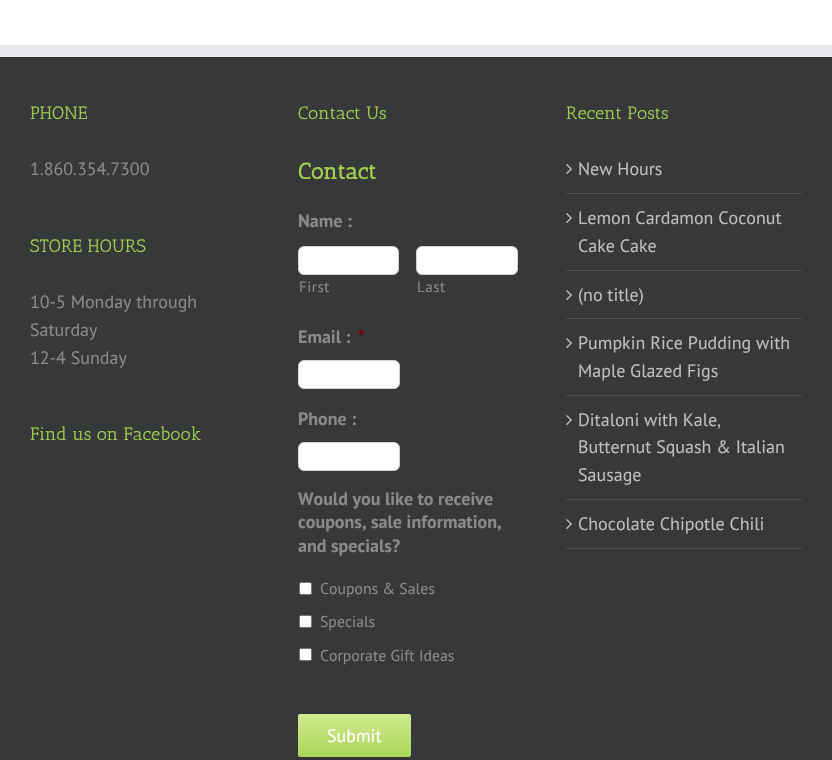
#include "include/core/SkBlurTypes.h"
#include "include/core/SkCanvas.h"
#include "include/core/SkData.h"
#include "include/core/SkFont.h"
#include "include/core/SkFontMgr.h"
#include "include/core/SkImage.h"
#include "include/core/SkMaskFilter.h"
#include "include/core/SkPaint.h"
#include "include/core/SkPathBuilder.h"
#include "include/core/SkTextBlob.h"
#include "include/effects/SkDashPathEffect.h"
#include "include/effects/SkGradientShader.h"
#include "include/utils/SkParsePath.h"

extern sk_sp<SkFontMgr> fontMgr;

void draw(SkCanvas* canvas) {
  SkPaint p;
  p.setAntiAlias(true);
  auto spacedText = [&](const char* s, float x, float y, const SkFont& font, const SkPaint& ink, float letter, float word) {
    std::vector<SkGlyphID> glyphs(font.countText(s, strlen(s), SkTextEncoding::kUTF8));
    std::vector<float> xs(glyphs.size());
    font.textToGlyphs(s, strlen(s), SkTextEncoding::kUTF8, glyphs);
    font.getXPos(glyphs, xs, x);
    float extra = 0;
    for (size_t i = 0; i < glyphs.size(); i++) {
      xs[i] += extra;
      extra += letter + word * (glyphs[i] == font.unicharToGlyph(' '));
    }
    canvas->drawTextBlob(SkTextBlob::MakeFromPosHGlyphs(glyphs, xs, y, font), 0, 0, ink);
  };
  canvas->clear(SK_ColorWHITE);
  p.setColor(SkColorSetRGB(54, 56, 57));
  canvas->drawRect(SkRect::MakeLTRB(0, 57, 832, 760), p);
  p.setColor(SkColorSetRGB(233, 234, 238));
  canvas->drawRect(SkRect::MakeLTRB(0, 45, 832, 57), p);
  p.setColor(SK_ColorWHITE);
  canvas->drawRoundRect(SkRect::MakeLTRB(298.5f, 246.5f, 398.5f, 274.5f), 5.5f, 5.5f, p);
  p.setStyle(SkPaint::kStroke_Style);
  p.setStrokeWidth(1);
  p.setColor(SkColorSetRGB(210, 210, 210));
  canvas->drawRoundRect(SkRect::MakeLTRB(298.5f, 246.5f, 398.5f, 274.5f), 5.5f, 5.5f, p);
  p.setStyle(SkPaint::kFill_Style);
  p.setColor(SK_ColorWHITE);
  canvas->drawRoundRect(SkRect::MakeLTRB(416.5f, 246.5f, 517.5f, 274.5f), 5.5f, 5.5f, p);
  p.setStyle(SkPaint::kStroke_Style);
  p.setColor(SkColorSetRGB(210, 210, 210));
  canvas->drawRoundRect(SkRect::MakeLTRB(416.5f, 246.5f, 517.5f, 274.5f), 5.5f, 5.5f, p);
  p.setStyle(SkPaint::kFill_Style);
  p.setColor(SK_ColorWHITE);
  canvas->drawRoundRect(SkRect::MakeLTRB(298.5f, 360.5f, 399.5f, 388.5f), 5.5f, 5.5f, p);
  p.setStyle(SkPaint::kStroke_Style);
  p.setColor(SkColorSetRGB(210, 210, 210));
  canvas->drawRoundRect(SkRect::MakeLTRB(298.5f, 360.5f, 399.5f, 388.5f), 5.5f, 5.5f, p);
  p.setStyle(SkPaint::kFill_Style);
  p.setColor(SK_ColorWHITE);
  canvas->drawRoundRect(SkRect::MakeLTRB(298.5f, 442.5f, 399.5f, 470.5f), 5.5f, 5.5f, p);
  p.setStyle(SkPaint::kStroke_Style);
  p.setColor(SkColorSetRGB(210, 210, 210));
  canvas->drawRoundRect(SkRect::MakeLTRB(298.5f, 442.5f, 399.5f, 470.5f), 5.5f, 5.5f, p);
  p.setStyle(SkPaint::kFill_Style);
  p.setColor(SK_ColorWHITE);
  canvas->drawRoundRect(SkRect::MakeLTRB(299.5f, 582.5f, 311.5f, 594.5f), 1.5f, 1.5f, p);
  p.setStyle(SkPaint::kStroke_Style);
  p.setColor(SkColorSetRGB(118, 118, 118));
  canvas->drawRoundRect(SkRect::MakeLTRB(299.5f, 582.5f, 311.5f, 594.5f), 1.5f, 1.5f, p);
  p.setStyle(SkPaint::kFill_Style);
  p.setColor(SK_ColorWHITE);
  canvas->drawRoundRect(SkRect::MakeLTRB(299.5f, 615.5f, 311.5f, 627.5f), 1.5f, 1.5f, p);
  p.setStyle(SkPaint::kStroke_Style);
  p.setColor(SkColorSetRGB(118, 118, 118));
  canvas->drawRoundRect(SkRect::MakeLTRB(299.5f, 615.5f, 311.5f, 627.5f), 1.5f, 1.5f, p);
  p.setStyle(SkPaint::kFill_Style);
  p.setColor(SK_ColorWHITE);
  canvas->drawRoundRect(SkRect::MakeLTRB(299.5f, 648.5f, 311.5f, 660.5f), 1.5f, 1.5f, p);
  p.setStyle(SkPaint::kStroke_Style);
  p.setColor(SkColorSetRGB(118, 118, 118));
  canvas->drawRoundRect(SkRect::MakeLTRB(299.5f, 648.5f, 311.5f, 660.5f), 1.5f, 1.5f, p);
  p.setStyle(SkPaint::kFill_Style);
  {
    const SkColor colors[] = {SkColorSetRGB(209, 233, 144), SkColorSetRGB(170, 215, 91)};
    const float stops[] = {0, 1};
    const SkPoint ends[] = {{355, 714}, {355, 757}};
    p.setShader(SkGradientShader::MakeLinear(ends, colors, stops, 2, SkTileMode::kClamp));
    p.setAlpha(255);
  }
  canvas->drawRoundRect(SkRect::MakeLTRB(298, 714, 411, 757), 2, 2, p);
  p.setShader(nullptr);
  p.setColor(SkColorSetRGB(80, 81, 82));
  canvas->drawRect(SkRect::MakeLTRB(566, 193, 802, 194), p);
  canvas->drawImageRect(SkImages::DeferredFromEncodedData(SkData::MakeFromFileName("images/1.png")), SkRect::MakeLTRB(566, 164, 572, 174), SkSamplingOptions());
  canvas->drawRect(SkRect::MakeLTRB(566, 270, 802, 271), p);
  canvas->drawImageRect(SkImages::DeferredFromEncodedData(SkData::MakeFromFileName("images/1.png")), SkRect::MakeLTRB(566, 213, 572, 223), SkSamplingOptions());
  canvas->drawRect(SkRect::MakeLTRB(566, 318, 802, 319), p);
  canvas->drawImageRect(SkImages::DeferredFromEncodedData(SkData::MakeFromFileName("images/1.png")), SkRect::MakeLTRB(566, 290, 572, 300), SkSamplingOptions());
  canvas->drawRect(SkRect::MakeLTRB(566, 395, 802, 396), p);
  canvas->drawImageRect(SkImages::DeferredFromEncodedData(SkData::MakeFromFileName("images/1.png")), SkRect::MakeLTRB(566, 338, 572, 348), SkSamplingOptions());
  canvas->drawRect(SkRect::MakeLTRB(566, 499, 802, 500), p);
  canvas->drawImageRect(SkImages::DeferredFromEncodedData(SkData::MakeFromFileName("images/1.png")), SkRect::MakeLTRB(566, 415, 572, 425), SkSamplingOptions());
  canvas->drawRect(SkRect::MakeLTRB(566, 548, 802, 549), p);
  canvas->drawImageRect(SkImages::DeferredFromEncodedData(SkData::MakeFromFileName("images/1.png")), SkRect::MakeLTRB(566, 519, 572, 529), SkSamplingOptions());
  SkFont font1(fontMgr->matchFamilyStyle("Antic Slab", SkFontStyle::Normal()), 18);
  font1.setSubpixel(true);
  p.setColor(SkColorSetRGB(160, 206, 78));
  canvas->drawString("PHONE", 30, 119, font1, p);
  SkFont font2(fontMgr->matchFamilyStyle("PT Sans", SkFontStyle::Normal()), 18);
  font2.setSubpixel(true);
  p.setColor(SkColorSetRGB(140, 137, 137));
  canvas->drawString("1.860.354.7300", 30, 175, font2, p);
  p.setColor(SkColorSetRGB(160, 206, 78));
  canvas->drawString("STORE HOURS", 30, 252, font1, p);
  p.setColor(SkColorSetRGB(140, 137, 137));
  canvas->drawString("10-5 Monday through", 30, 308, font2, p);
  canvas->drawString("Saturday", 30, 336, font2, p);
  canvas->drawString("12-4 Sunday", 30, 364, font2, p);
  p.setColor(SkColorSetRGB(160, 206, 78));
  canvas->drawString("Find us on Facebook", 30, 440, font1, p);
  canvas->drawString("Contact Us", 298, 119, font1, p);
  SkFont font3(fontMgr->matchFamilyStyle("Antic Slab", SkFontStyle::Bold()), 22.5f);
  font3.setSubpixel(true);
  canvas->drawString("Contact", 298, 179, font3, p);
  SkFont font4(fontMgr->matchFamilyStyle("PT Sans", SkFontStyle::Bold()), 18);
  font4.setSubpixel(true);
  p.setColor(SkColorSetRGB(140, 137, 137));
  canvas->drawString("Name :", 298, 227, font4, p);
  SkFont font5(fontMgr->matchFamilyStyle("PT Sans", SkFontStyle::Normal()), 15);
  font5.setSubpixel(true);
  spacedText("First", 299, 292, font5, p, 0.5f, 0);
  spacedText("Last", 417, 292, font5, p, 0.5f, 0);
  canvas->drawString("Email :", 298, 343, font4, p);
  p.setColor(SkColorSetRGB(121, 0, 0));
  canvas->drawString("*", 358, 343, font4, p);
  p.setColor(SkColorSetRGB(140, 137, 137));
  canvas->drawString("Phone :", 298, 425, font4, p);
  canvas->drawString("Would you like to receive", 298, 505, font4, p);
  canvas->drawString("coupons, sale information,", 298, 528, font4, p);
  canvas->drawString("and specials?", 298, 552, font4, p);
  SkFont font6(fontMgr->matchFamilyStyle("PT Sans", SkFontStyle::Normal()), 15.75f);
  font6.setSubpixel(true);
  canvas->drawString("Coupons & Sales", 320, 594, font6, p);
  canvas->drawString("Specials", 320, 627, font6, p);
  canvas->drawString("Corporate Gift Ideas", 320, 661, font6, p);
  p.setColor(SK_ColorWHITE);
  canvas->drawString("Submit", 327, 742, font2, p);
  p.setColor(SkColorSetRGB(160, 206, 78));
  canvas->drawString("Recent Posts", 566, 119, font1, p);
  p.setColor(SkColorSetRGB(191, 191, 191));
  canvas->drawString("New Hours", 578, 175, font2, p);
  canvas->drawString("Lemon Cardamon Coconut", 578, 224, font2, p);
  canvas->drawString("Cake Cake", 578, 252, font2, p);
  canvas->drawString("(no title)", 578, 301, font2, p);
  canvas->drawString("Pumpkin Rice Pudding with", 578, 349, font2, p);
  canvas->drawString("Maple Glazed Figs", 578, 377, font2, p);
  canvas->drawString("Ditaloni with Kale,", 578, 426, font2, p);
  canvas->drawString("Butternut Squash & Italian", 578, 453, font2, p);
  canvas->drawString("Sausage", 578, 481, font2, p);
  canvas->drawString("Chocolate Chipotle Chili", 578, 530, font2, p);
}
